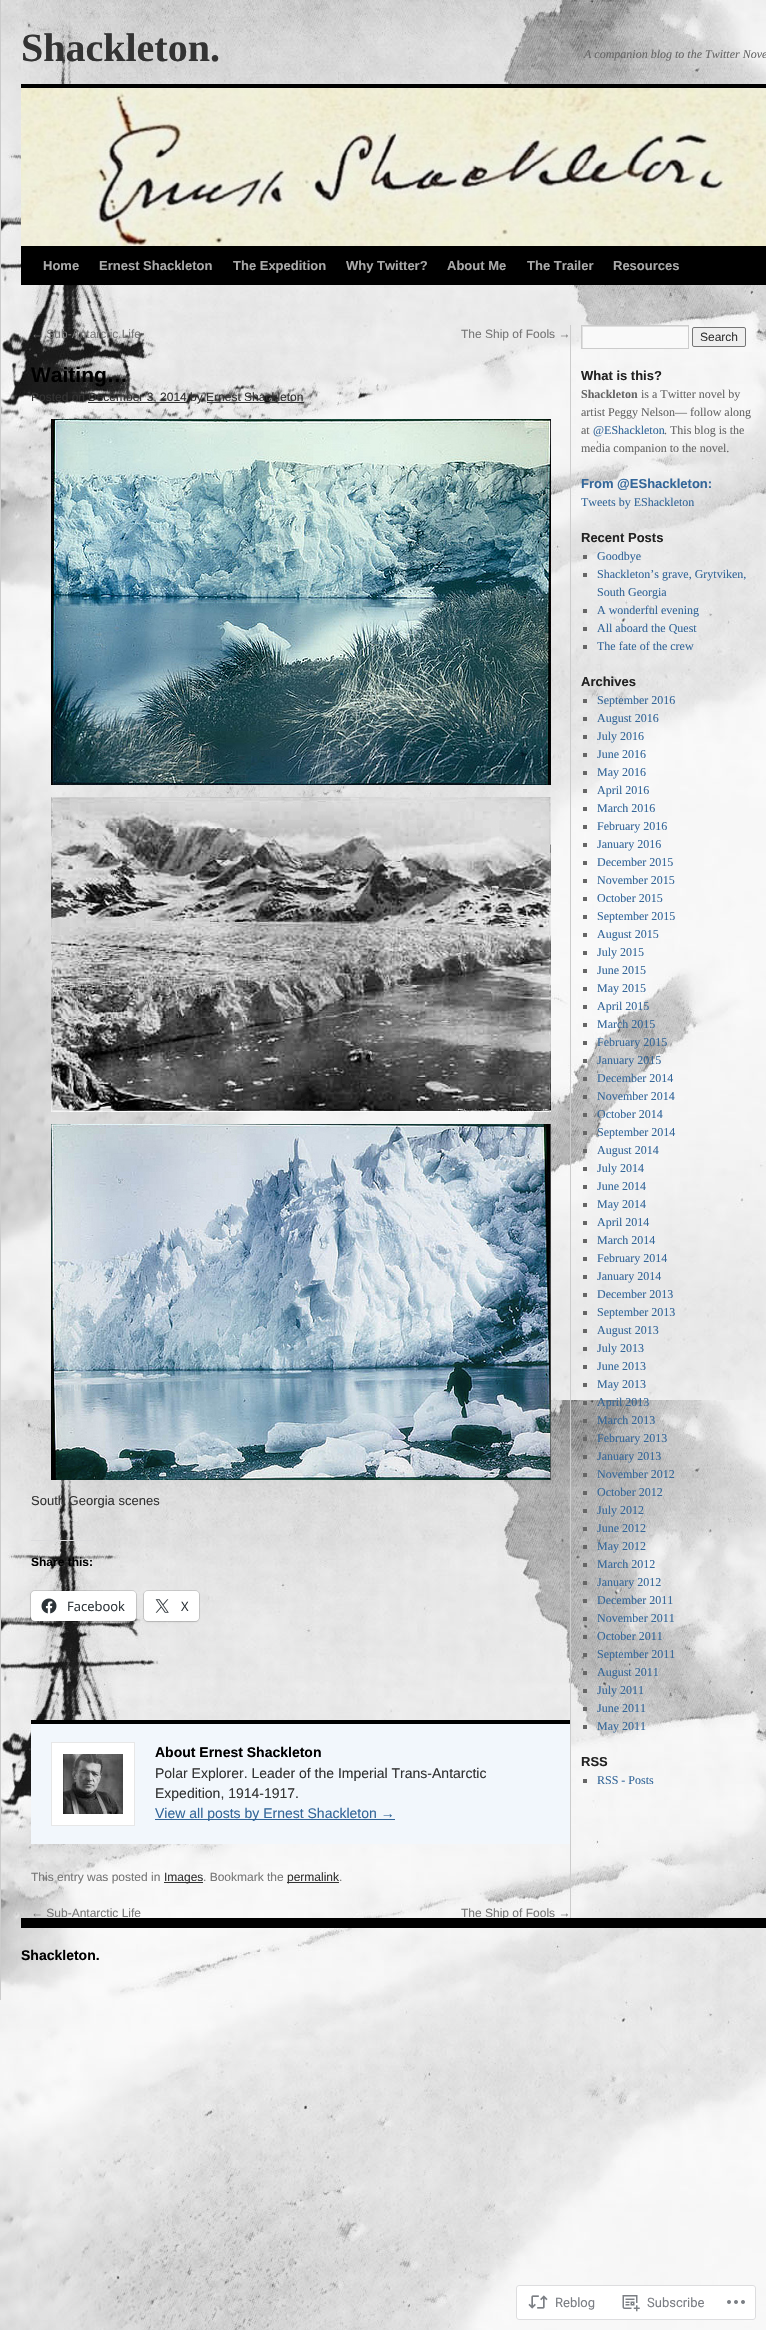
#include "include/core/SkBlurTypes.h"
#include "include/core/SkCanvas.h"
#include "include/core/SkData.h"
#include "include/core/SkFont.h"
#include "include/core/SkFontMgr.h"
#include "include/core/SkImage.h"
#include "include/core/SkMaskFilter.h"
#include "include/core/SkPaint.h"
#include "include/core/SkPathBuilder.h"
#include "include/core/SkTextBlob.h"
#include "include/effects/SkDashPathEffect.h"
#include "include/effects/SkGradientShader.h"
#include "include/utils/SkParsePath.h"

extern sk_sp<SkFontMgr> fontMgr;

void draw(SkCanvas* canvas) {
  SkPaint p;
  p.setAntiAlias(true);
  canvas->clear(SK_ColorWHITE);
  canvas->drawImageRect(SkImages::DeferredFromEncodedData(SkData::MakeFromFileName("images/1.png")), SkRect::MakeLTRB(0, 0, 766, 2330), SkSamplingOptions());
  p.setColor(SkColorSetRGB(204, 204, 204));
  canvas->drawRect(SkRect::MakeLTRB(0, 0, 1, 2000), p);
  p.setColor(SK_ColorBLACK);
  canvas->drawRect(SkRect::MakeLTRB(21, 84, 766, 88), p);
  canvas->drawRect(SkRect::MakeLTRB(21, 246, 766, 285), p);
  canvas->drawImageRect(SkImages::DeferredFromEncodedData(SkData::MakeFromFileName("images/2.png")), SkRect::MakeLTRB(21, 88, 766, 246), SkSamplingOptions());
  p.setColor(SkColorSetRGB(204, 204, 204));
  canvas->drawRect(SkRect::MakeLTRB(570, 325, 571, 1922), p);
  p.setColor(SkColorSetRGB(51, 51, 51));
  canvas->drawRect(SkRect::MakeLTRB(88, 402, 187, 403), p);
  canvas->drawRect(SkRect::MakeLTRB(207, 402, 304, 403), p);
  canvas->drawImageRect(SkImages::DeferredFromEncodedData(SkData::MakeFromFileName("images/3.png")), SkRect::MakeLTRB(51, 419, 551, 785), SkSamplingOptions());
  canvas->drawImageRect(SkImages::DeferredFromEncodedData(SkData::MakeFromFileName("images/4.png")), SkRect::MakeLTRB(51, 797, 551, 1112), SkSamplingOptions());
  canvas->drawImageRect(SkImages::DeferredFromEncodedData(SkData::MakeFromFileName("images/5.png")), SkRect::MakeLTRB(51, 1124, 551, 1480), SkSamplingOptions());
  p.setColor(SkColorSetRGB(220, 220, 222));
  canvas->drawRect(SkRect::MakeLTRB(31, 1540, 93, 1541), p);
  p.setStyle(SkPaint::kStroke_Style);
  p.setStrokeWidth(1);
  p.setColor(SkColorSetARGB(31, 0, 0, 0));
  canvas->drawRoundRect(SkRect::MakeLTRB(30.5f, 1590.5f, 136.5f, 1621.5f), 4.5f, 4.5f, p);
  p.setStyle(SkPaint::kFill_Style);
  p.setMaskFilter(SkMaskFilter::MakeBlur(kNormal_SkBlurStyle, 1));
  canvas->drawRoundRect(SkRect::MakeLTRB(31, 1592, 136, 1622), 4, 4, p);
  p.setMaskFilter(nullptr);
  p.setColor(SK_ColorWHITE);
  canvas->drawRoundRect(SkRect::MakeLTRB(31, 1591, 136, 1621), 4, 4, p);
  canvas->drawImageRect(SkImages::DeferredFromEncodedData(SkData::MakeFromFileName("images/6.png")), SkRect::MakeLTRB(41, 1598, 57, 1614), SkSamplingOptions());
  p.setStyle(SkPaint::kStroke_Style);
  p.setColor(SkColorSetARGB(31, 0, 0, 0));
  canvas->drawRoundRect(SkRect::MakeLTRB(143.5f, 1590.5f, 199.5f, 1621.5f), 4.5f, 4.5f, p);
  p.setStyle(SkPaint::kFill_Style);
  p.setMaskFilter(SkMaskFilter::MakeBlur(kNormal_SkBlurStyle, 1));
  canvas->drawRoundRect(SkRect::MakeLTRB(144, 1592, 199, 1622), 4, 4, p);
  p.setMaskFilter(nullptr);
  p.setColor(SK_ColorWHITE);
  canvas->drawRoundRect(SkRect::MakeLTRB(144, 1591, 199, 1621), 4, 4, p);
  canvas->drawImageRect(SkImages::DeferredFromEncodedData(SkData::MakeFromFileName("images/7.png")), SkRect::MakeLTRB(155, 1599, 169, 1613), SkSamplingOptions());
  p.setColor(SkColorSetRGB(242, 247, 252));
  canvas->drawRect(SkRect::MakeLTRB(31, 1724, 570, 1844), p);
  p.setColor(SK_ColorBLACK);
  canvas->drawRect(SkRect::MakeLTRB(31, 1720, 570, 1724), p);
  p.setColor(SK_ColorWHITE);
  canvas->drawRect(SkRect::MakeLTRB(51.5f, 1742.5f, 134.5f, 1825.5f), p);
  p.setStyle(SkPaint::kStroke_Style);
  p.setColor(SkColorSetRGB(231, 231, 231));
  canvas->drawRect(SkRect::MakeLTRB(51.5f, 1742.5f, 134.5f, 1825.5f), p);
  canvas->drawImageRect(SkImages::DeferredFromEncodedData(SkData::MakeFromFileName("images/8.png")), SkRect::MakeLTRB(63, 1754, 123, 1814), SkSamplingOptions());
  p.setStyle(SkPaint::kFill_Style);
  p.setColor(SkColorSetRGB(51, 102, 153));
  canvas->drawRect(SkRect::MakeLTRB(155, 1819, 395, 1820), p);
  p.setColor(SkColorSetRGB(51, 51, 51));
  canvas->drawRect(SkRect::MakeLTRB(164, 1882, 203, 1883), p);
  canvas->drawRect(SkRect::MakeLTRB(287, 1882, 339, 1883), p);
  p.setColor(SkColorSetRGB(249, 249, 249));
  canvas->drawRect(SkRect::MakeLTRB(583, 327, 688, 348), p);
  canvas->save();
  canvas->clipRect(SkRect::MakeLTRB(582, 326, 688, 348));
  p.setColor(SkColorSetRGB(224, 224, 224));
  canvas->drawPath(SkPathBuilder(SkPathFillType::kEvenOdd).moveTo(483, 227).lineTo(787, 227).lineTo(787, 447).lineTo(483, 447).close().moveTo(583, 327).lineTo(689, 327).lineTo(689, 349).lineTo(583, 349).close().detach(), p);
  canvas->restore();
  p.setStyle(SkPaint::kStroke_Style);
  p.setColor(SkColorSetRGB(204, 204, 204));
  canvas->drawRect(SkRect::MakeLTRB(581.5f, 325.5f, 688.5f, 348.5f), p);
  p.setStyle(SkPaint::kFill_Style);
  p.setColor(SkColorSetRGB(239, 239, 239));
  canvas->drawRoundRect(SkRect::MakeLTRB(692.5f, 327.5f, 745.5f, 346.5f), 1.5f, 1.5f, p);
  p.setStyle(SkPaint::kStroke_Style);
  p.setColor(SkColorSetRGB(118, 118, 118));
  canvas->drawRoundRect(SkRect::MakeLTRB(692.5f, 327.5f, 745.5f, 346.5f), 1.5f, 1.5f, p);
  p.setStyle(SkPaint::kFill_Style);
  p.setColor(SkColorSetRGB(102, 102, 102));
  canvas->drawRect(SkRect::MakeLTRB(583, 555, 587, 559), p);
  canvas->drawRect(SkRect::MakeLTRB(583, 573, 587, 577), p);
  canvas->drawRect(SkRect::MakeLTRB(583, 609, 587, 613), p);
  canvas->drawRect(SkRect::MakeLTRB(583, 627, 587, 631), p);
  canvas->drawRect(SkRect::MakeLTRB(583, 645, 587, 649), p);
  canvas->drawRect(SkRect::MakeLTRB(583, 699, 587, 703), p);
  canvas->drawRect(SkRect::MakeLTRB(583, 717, 587, 721), p);
  canvas->drawRect(SkRect::MakeLTRB(583, 735, 587, 739), p);
  canvas->drawRect(SkRect::MakeLTRB(583, 753, 587, 757), p);
  canvas->drawRect(SkRect::MakeLTRB(583, 771, 587, 775), p);
  canvas->drawRect(SkRect::MakeLTRB(583, 789, 587, 793), p);
  canvas->drawRect(SkRect::MakeLTRB(583, 807, 587, 811), p);
  canvas->drawRect(SkRect::MakeLTRB(583, 825, 587, 829), p);
  canvas->drawRect(SkRect::MakeLTRB(583, 843, 587, 847), p);
  canvas->drawRect(SkRect::MakeLTRB(583, 861, 587, 865), p);
  canvas->drawRect(SkRect::MakeLTRB(583, 879, 587, 883), p);
  canvas->drawRect(SkRect::MakeLTRB(583, 897, 587, 901), p);
  canvas->drawRect(SkRect::MakeLTRB(583, 915, 587, 919), p);
  canvas->drawRect(SkRect::MakeLTRB(583, 933, 587, 937), p);
  canvas->drawRect(SkRect::MakeLTRB(583, 951, 587, 955), p);
  canvas->drawRect(SkRect::MakeLTRB(583, 969, 587, 973), p);
  canvas->drawRect(SkRect::MakeLTRB(583, 987, 587, 991), p);
  canvas->drawRect(SkRect::MakeLTRB(583, 1005, 587, 1009), p);
  canvas->drawRect(SkRect::MakeLTRB(583, 1023, 587, 1027), p);
  canvas->drawRect(SkRect::MakeLTRB(583, 1041, 587, 1045), p);
  canvas->drawRect(SkRect::MakeLTRB(583, 1059, 587, 1063), p);
  canvas->drawRect(SkRect::MakeLTRB(583, 1077, 587, 1081), p);
  canvas->drawRect(SkRect::MakeLTRB(583, 1095, 587, 1099), p);
  canvas->drawRect(SkRect::MakeLTRB(583, 1113, 587, 1117), p);
  canvas->drawRect(SkRect::MakeLTRB(583, 1131, 587, 1135), p);
  canvas->drawRect(SkRect::MakeLTRB(583, 1149, 587, 1153), p);
  canvas->drawRect(SkRect::MakeLTRB(583, 1167, 587, 1171), p);
  canvas->drawRect(SkRect::MakeLTRB(583, 1185, 587, 1189), p);
  canvas->drawRect(SkRect::MakeLTRB(583, 1203, 587, 1207), p);
  canvas->drawRect(SkRect::MakeLTRB(583, 1221, 587, 1225), p);
  canvas->drawRect(SkRect::MakeLTRB(583, 1239, 587, 1243), p);
  canvas->drawRect(SkRect::MakeLTRB(583, 1257, 587, 1261), p);
  canvas->drawRect(SkRect::MakeLTRB(583, 1275, 587, 1279), p);
  canvas->drawRect(SkRect::MakeLTRB(583, 1293, 587, 1297), p);
  canvas->drawRect(SkRect::MakeLTRB(583, 1311, 587, 1315), p);
  canvas->drawRect(SkRect::MakeLTRB(583, 1329, 587, 1333), p);
  canvas->drawRect(SkRect::MakeLTRB(583, 1347, 587, 1351), p);
  canvas->drawRect(SkRect::MakeLTRB(583, 1365, 587, 1369), p);
  canvas->drawRect(SkRect::MakeLTRB(583, 1383, 587, 1387), p);
  canvas->drawRect(SkRect::MakeLTRB(583, 1401, 587, 1405), p);
  canvas->drawRect(SkRect::MakeLTRB(583, 1419, 587, 1423), p);
  canvas->drawRect(SkRect::MakeLTRB(583, 1437, 587, 1441), p);
  canvas->drawRect(SkRect::MakeLTRB(583, 1455, 587, 1459), p);
  canvas->drawRect(SkRect::MakeLTRB(583, 1473, 587, 1477), p);
  canvas->drawRect(SkRect::MakeLTRB(583, 1491, 587, 1495), p);
  canvas->drawRect(SkRect::MakeLTRB(583, 1509, 587, 1513), p);
  canvas->drawRect(SkRect::MakeLTRB(583, 1527, 587, 1531), p);
  canvas->drawRect(SkRect::MakeLTRB(583, 1545, 587, 1549), p);
  canvas->drawRect(SkRect::MakeLTRB(583, 1563, 587, 1567), p);
  canvas->drawRect(SkRect::MakeLTRB(583, 1581, 587, 1585), p);
  canvas->drawRect(SkRect::MakeLTRB(583, 1599, 587, 1603), p);
  canvas->drawRect(SkRect::MakeLTRB(583, 1617, 587, 1621), p);
  canvas->drawRect(SkRect::MakeLTRB(583, 1635, 587, 1639), p);
  canvas->drawRect(SkRect::MakeLTRB(583, 1653, 587, 1657), p);
  canvas->drawRect(SkRect::MakeLTRB(583, 1671, 587, 1675), p);
  canvas->drawRect(SkRect::MakeLTRB(583, 1689, 587, 1693), p);
  canvas->drawRect(SkRect::MakeLTRB(583, 1707, 587, 1711), p);
  canvas->drawRect(SkRect::MakeLTRB(583, 1725, 587, 1729), p);
  canvas->drawRect(SkRect::MakeLTRB(583, 1779, 587, 1783), p);
  p.setColor(SkColorSetARGB(250, 255, 255, 255));
  canvas->drawRoundRect(SkRect::MakeLTRB(516, 2285, 756, 2320), 3, 3, p);
  p.setStyle(SkPaint::kStroke_Style);
  p.setColor(SkColorSetARGB(250, 220, 220, 222));
  canvas->drawRoundRect(SkRect::MakeLTRB(516.5f, 2285.5f, 755.5f, 2319.5f), 2.5f, 2.5f, p);
  canvas->drawImageRect(SkImages::DeferredFromEncodedData(SkData::MakeFromFileName("images/9.png")), SkRect::MakeLTRB(528, 2295, 548, 2309), SkSamplingOptions());
  canvas->drawImageRect(SkImages::DeferredFromEncodedData(SkData::MakeFromFileName("images/10.png")), SkRect::MakeLTRB(622, 2295, 640, 2312), SkSamplingOptions());
  canvas->drawImageRect(SkImages::DeferredFromEncodedData(SkData::MakeFromFileName("images/11.png")), SkRect::MakeLTRB(727, 2300, 745, 2304), SkSamplingOptions());
  SkFont font1(fontMgr->matchFamilyStyle("Liberation Serif", SkFontStyle::Bold()), 40);
  font1.setSubpixel(true);
  p.setStyle(SkPaint::kFill_Style);
  p.setColor(SkColorSetRGB(51, 51, 51));
  canvas->drawString("Shackleton.", 21, 61, font1, p);
  SkFont font2(fontMgr->matchFamilyStyle("Liberation Serif", SkFontStyle::Italic()), 12);
  font2.setSubpixel(true);
  p.setColor(SkColorSetRGB(102, 102, 102));
  canvas->drawString("A companion blog to the Twitter Nove", 584, 58, font2, p);
  SkFont font3(fontMgr->matchFamilyStyle("Liberation Sans", SkFontStyle::Bold()), 13);
  font3.setSubpixel(true);
  p.setColor(SkColorSetRGB(170, 170, 170));
  canvas->drawString("Home", 43, 270, font3, p);
  canvas->drawString("Ernest Shackleton", 99, 270, font3, p);
  canvas->drawString("The Expedition", 233, 270, font3, p);
  canvas->drawString("Why Twitter?", 346, 270, font3, p);
  canvas->drawString("About Me", 447, 270, font3, p);
  canvas->drawString("The Trailer", 527, 270, font3, p);
  canvas->drawString("Resources", 613, 270, font3, p);
  SkFont font4(fontMgr->matchFamilyStyle("Liberation Sans", SkFontStyle::Normal()), 12);
  font4.setSubpixel(true);
  p.setColor(SkColorSetRGB(119, 119, 119));
  canvas->drawString("← Sub-Antarctic Life", 31, 338, font4, p);
  canvas->drawString("The Ship of Fools →", 461, 338, font4, p);
  SkFont font5(fontMgr->matchFamilyStyle("Liberation Sans", SkFontStyle::Bold()), 21);
  font5.setSubpixel(true);
  p.setColor(SK_ColorBLACK);
  canvas->drawString("Waiting…", 31, 382, font5, p);
  p.setColor(SkColorSetRGB(51, 51, 51));
  canvas->drawString("Posted on", 31, 401, font4, p);
  canvas->drawString("December 3, 2014 by Ernest Shackleton", 88, 401, font4, p);
  SkFont font6(fontMgr->matchFamilyStyle("Liberation Sans", SkFontStyle::Normal()), 13);
  font6.setSubpixel(true);
  canvas->drawString("South Georgia scenes", 31, 1505, font6, p);
  SkFont font7(fontMgr->matchFamilyStyle("Liberation Sans", SkFontStyle::Bold()), 12);
  font7.setSubpixel(true);
  p.setColor(SK_ColorBLACK);
  canvas->drawString("Share this:", 31, 1566, font7, p);
  SkFont font8(fontMgr->matchFamilyStyle("Open Sans", SkFontStyle::Normal()), 13);
  font8.setSubpixel(true);
  p.setColor(SkColorSetRGB(44, 51, 56));
  canvas->drawString("Facebook", 67, 1611, font8, p);
  canvas->drawString("X", 181, 1611, font8, p);
  SkFont font9(fontMgr->matchFamilyStyle("Liberation Sans", SkFontStyle::Bold()), 14);
  font9.setSubpixel(true);
  p.setColor(SK_ColorBLACK);
  canvas->drawString("About Ernest Shackleton", 155, 1757, font9, p);
  SkFont font10(fontMgr->matchFamilyStyle("Liberation Sans", SkFontStyle::Normal()), 14);
  font10.setSubpixel(true);
  p.setColor(SkColorSetRGB(51, 51, 51));
  canvas->drawString("Polar Explorer. Leader of the Imperial Trans-Antarctic", 155, 1778, font10, p);
  canvas->drawString("Expedition, 1914-1917.", 155, 1798, font10, p);
  p.setColor(SkColorSetRGB(51, 102, 153));
  canvas->drawString("View all posts by Ernest Shackleton →", 155, 1818, font10, p);
  p.setColor(SkColorSetRGB(119, 119, 119));
  canvas->drawString("This entry was posted in", 31, 1881, font4, p);
  p.setColor(SkColorSetRGB(51, 51, 51));
  canvas->drawString("Images", 164, 1881, font4, p);
  p.setColor(SkColorSetRGB(119, 119, 119));
  canvas->drawString(". Bookmark the", 203, 1881, font4, p);
  p.setColor(SkColorSetRGB(51, 51, 51));
  canvas->drawString("permalink", 287, 1881, font4, p);
  p.setColor(SkColorSetRGB(119, 119, 119));
  canvas->drawString(".", 339, 1881, font4, p);
  canvas->drawString("← Sub-Antarctic Life", 31, 1917, font4, p);
  canvas->drawString("The Ship of Fools →", 461, 1917, font4, p);
  p.setColor(SkColorSetRGB(51, 51, 51));
  canvas->drawString("Search", 700, 341, font4, p);
  p.setColor(SkColorSetRGB(34, 34, 34));
  canvas->drawString("What is this?", 581, 380, font3, p);
  SkFont font11(fontMgr->matchFamilyStyle("Liberation Serif", SkFontStyle::Bold()), 12);
  font11.setSubpixel(true);
  p.setColor(SkColorSetRGB(102, 102, 102));
  canvas->drawString("Shackleton", 581, 398, font11, p);
  SkFont font12(fontMgr->matchFamilyStyle("Liberation Serif", SkFontStyle::Normal()), 12);
  font12.setSubpixel(true);
  canvas->drawString("is a Twitter novel by", 641, 398, font12, p);
  canvas->drawString("artist Peggy Nelson— follow along", 581, 416, font12, p);
  canvas->drawString("at", 581, 434, font12, p);
  p.setColor(SkColorSetRGB(51, 102, 153));
  canvas->drawString("@EShackleton", 593, 434, font12, p);
  p.setColor(SkColorSetRGB(102, 102, 102));
  canvas->drawString(". This blog is the", 664, 434, font12, p);
  canvas->drawString("media companion to the novel.", 581, 452, font12, p);
  p.setColor(SkColorSetRGB(51, 102, 153));
  canvas->drawString("From @EShackleton:", 581, 488, font3, p);
  canvas->drawString("Tweets by EShackleton", 581, 506, font12, p);
  p.setColor(SkColorSetRGB(34, 34, 34));
  canvas->drawString("Recent Posts", 581, 542, font3, p);
  p.setColor(SkColorSetRGB(51, 102, 153));
  canvas->drawString("Goodbye", 597, 560, font12, p);
  canvas->drawString("Shackleton’s grave, Grytviken,", 597, 578, font12, p);
  canvas->drawString("South Georgia", 597, 596, font12, p);
  canvas->drawString("A wonderful evening", 597, 614, font12, p);
  canvas->drawString("All aboard the Quest", 597, 632, font12, p);
  canvas->drawString("The fate of the crew", 597, 650, font12, p);
  p.setColor(SkColorSetRGB(34, 34, 34));
  canvas->drawString("Archives", 581, 686, font3, p);
  p.setColor(SkColorSetRGB(51, 102, 153));
  canvas->drawString("September 2016", 597, 704, font12, p);
  canvas->drawString("August 2016", 597, 722, font12, p);
  canvas->drawString("July 2016", 597, 740, font12, p);
  canvas->drawString("June 2016", 597, 758, font12, p);
  canvas->drawString("May 2016", 597, 776, font12, p);
  canvas->drawString("April 2016", 597, 794, font12, p);
  canvas->drawString("March 2016", 597, 812, font12, p);
  canvas->drawString("February 2016", 597, 830, font12, p);
  canvas->drawString("January 2016", 597, 848, font12, p);
  canvas->drawString("December 2015", 597, 866, font12, p);
  canvas->drawString("November 2015", 597, 884, font12, p);
  canvas->drawString("October 2015", 597, 902, font12, p);
  canvas->drawString("September 2015", 597, 920, font12, p);
  canvas->drawString("August 2015", 597, 938, font12, p);
  canvas->drawString("July 2015", 597, 956, font12, p);
  canvas->drawString("June 2015", 597, 974, font12, p);
  canvas->drawString("May 2015", 597, 992, font12, p);
  canvas->drawString("April 2015", 597, 1010, font12, p);
  canvas->drawString("March 2015", 597, 1028, font12, p);
  canvas->drawString("February 2015", 597, 1046, font12, p);
  canvas->drawString("January 2015", 597, 1064, font12, p);
  canvas->drawString("December 2014", 597, 1082, font12, p);
  canvas->drawString("November 2014", 597, 1100, font12, p);
  canvas->drawString("October 2014", 597, 1118, font12, p);
  canvas->drawString("September 2014", 597, 1136, font12, p);
  canvas->drawString("August 2014", 597, 1154, font12, p);
  canvas->drawString("July 2014", 597, 1172, font12, p);
  canvas->drawString("June 2014", 597, 1190, font12, p);
  canvas->drawString("May 2014", 597, 1208, font12, p);
  canvas->drawString("April 2014", 597, 1226, font12, p);
  canvas->drawString("March 2014", 597, 1244, font12, p);
  canvas->drawString("February 2014", 597, 1262, font12, p);
  canvas->drawString("January 2014", 597, 1280, font12, p);
  canvas->drawString("December 2013", 597, 1298, font12, p);
  canvas->drawString("September 2013", 597, 1316, font12, p);
  canvas->drawString("August 2013", 597, 1334, font12, p);
  canvas->drawString("July 2013", 597, 1352, font12, p);
  canvas->drawString("June 2013", 597, 1370, font12, p);
  canvas->drawString("May 2013", 597, 1388, font12, p);
  canvas->drawString("April 2013", 597, 1406, font12, p);
  canvas->drawString("March 2013", 597, 1424, font12, p);
  canvas->drawString("February 2013", 597, 1442, font12, p);
  canvas->drawString("January 2013", 597, 1460, font12, p);
  canvas->drawString("November 2012", 597, 1478, font12, p);
  canvas->drawString("October 2012", 597, 1496, font12, p);
  canvas->drawString("July 2012", 597, 1514, font12, p);
  canvas->drawString("June 2012", 597, 1532, font12, p);
  canvas->drawString("May 2012", 597, 1550, font12, p);
  canvas->drawString("March 2012", 597, 1568, font12, p);
  canvas->drawString("January 2012", 597, 1586, font12, p);
  canvas->drawString("December 2011", 597, 1604, font12, p);
  canvas->drawString("November 2011", 597, 1622, font12, p);
  canvas->drawString("October 2011", 597, 1640, font12, p);
  canvas->drawString("September 2011", 597, 1658, font12, p);
  canvas->drawString("August 2011", 597, 1676, font12, p);
  canvas->drawString("July 2011", 597, 1694, font12, p);
  canvas->drawString("June 2011", 597, 1712, font12, p);
  canvas->drawString("May 2011", 597, 1730, font12, p);
  p.setColor(SkColorSetRGB(34, 34, 34));
  canvas->drawString("RSS", 581, 1766, font3, p);
  p.setColor(SkColorSetRGB(51, 102, 153));
  canvas->drawString("RSS - Posts", 597, 1784, font12, p);
  p.setColor(SK_ColorBLACK);
  canvas->drawRect(SkRect::MakeLTRB(21, 1918, 766, 1928), p);
  canvas->drawString("Shackleton.", 21, 1960, font9, p);
  SkFont font13(fontMgr->matchFamilyStyle("Roboto", SkFontStyle::Normal()), 13);
  font13.setSubpixel(true);
  p.setColor(SkColorSetRGB(123, 126, 132));
  canvas->drawString("Reblog", 555, 2307, font13, p);
  canvas->drawString("Subscribe", 647, 2307, font13, p);
}
